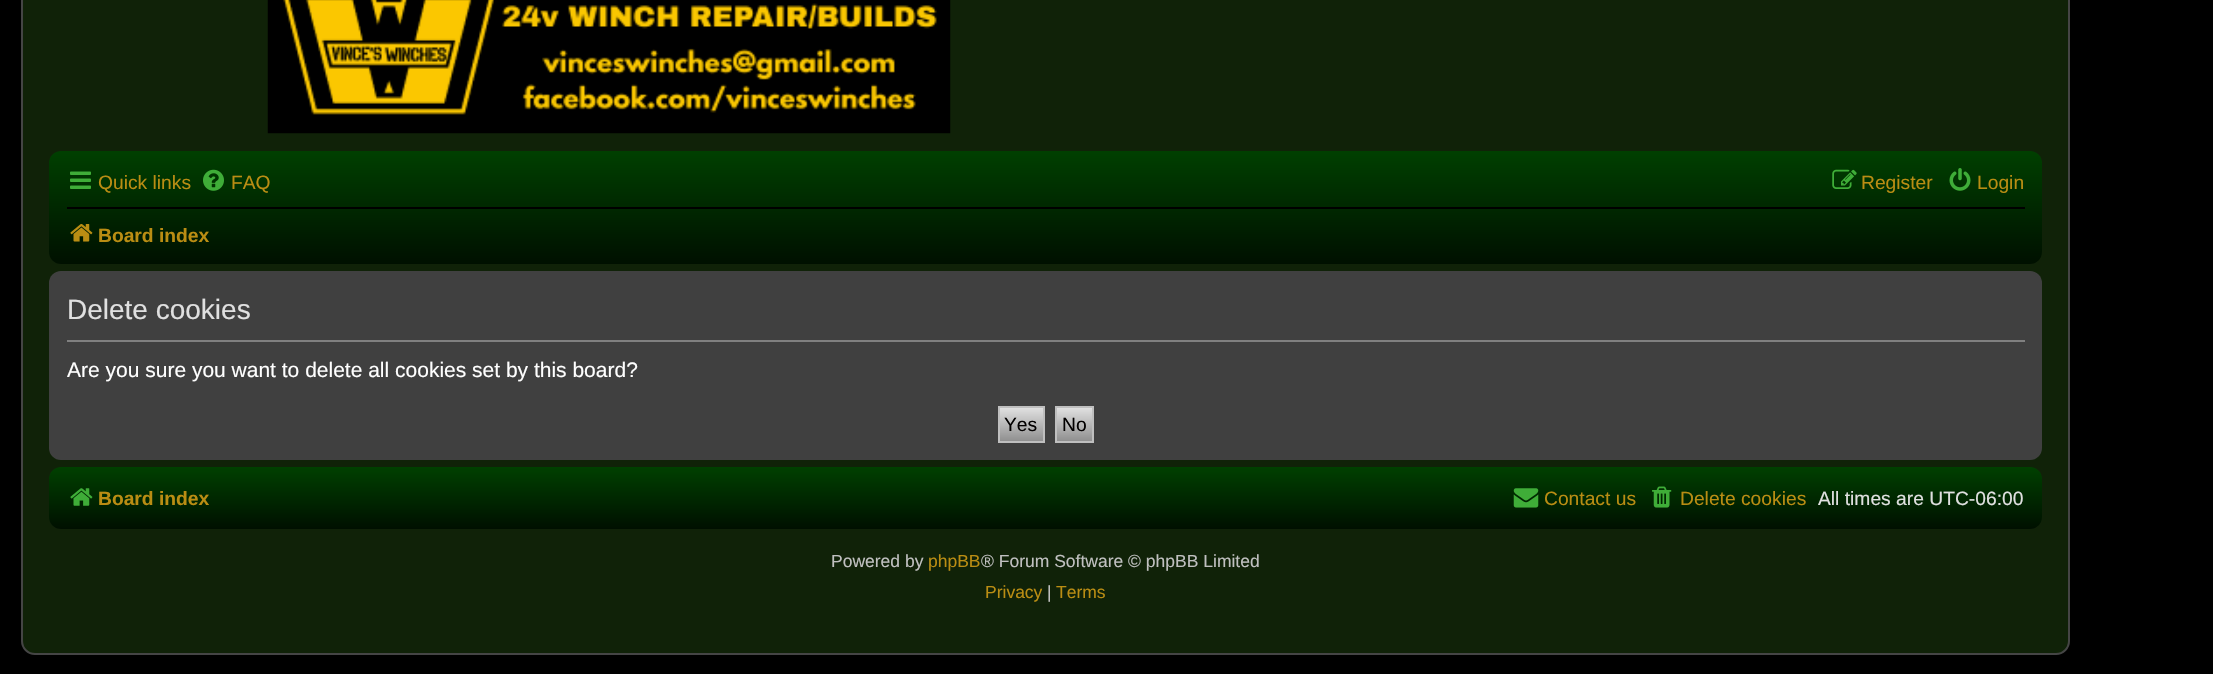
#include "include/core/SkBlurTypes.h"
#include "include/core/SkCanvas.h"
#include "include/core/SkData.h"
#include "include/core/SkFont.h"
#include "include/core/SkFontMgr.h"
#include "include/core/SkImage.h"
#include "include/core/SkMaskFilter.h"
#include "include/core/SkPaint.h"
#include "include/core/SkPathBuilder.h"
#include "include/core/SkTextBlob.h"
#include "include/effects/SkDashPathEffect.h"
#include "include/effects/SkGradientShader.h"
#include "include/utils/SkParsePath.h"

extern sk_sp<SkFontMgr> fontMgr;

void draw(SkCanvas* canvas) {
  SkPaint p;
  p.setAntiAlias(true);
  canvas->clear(SK_ColorBLACK);
  p.setColor(SkColorSetRGB(16, 34, 8));
  canvas->drawRoundRect(SkRect::MakeLTRB(22, -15, 2069, 654), 13, 13, p);
  p.setStyle(SkPaint::kStroke_Style);
  p.setStrokeWidth(2);
  p.setColor(SkColorSetRGB(69, 69, 69));
  canvas->drawRoundRect(SkRect::MakeLTRB(22, -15, 2069, 654), 13, 13, p);
  canvas->drawImageRect(SkImages::DeferredFromEncodedData(SkData::MakeFromFileName("images/1.png")), SkRect::MakeLTRB(267, 0, 951, 134), SkSamplingOptions());
  p.setStyle(SkPaint::kFill_Style);
  {
    const SkColor colors[] = {SkColorSetRGB(0, 64, 0), SkColorSetRGB(0, 16, 0)};
    const float stops[] = {0, 1};
    const SkPoint ends[] = {{1046, 150}, {1046, 264}};
    p.setShader(SkGradientShader::MakeLinear(ends, colors, stops, 2, SkTileMode::kClamp));
    p.setAlpha(255);
  }
  canvas->drawRoundRect(SkRect::MakeLTRB(49, 151, 2042, 264), 12, 12, p);
  canvas->drawImageRect(SkImages::DeferredFromEncodedData(SkData::MakeFromFileName("images/2.png")), SkRect::MakeLTRB(70, 171, 91, 189), SkSamplingOptions());
  canvas->drawImageRect(SkImages::DeferredFromEncodedData(SkData::MakeFromFileName("images/3.png")), SkRect::MakeLTRB(203, 169, 224, 191), SkSamplingOptions());
  canvas->drawImageRect(SkImages::DeferredFromEncodedData(SkData::MakeFromFileName("images/4.png")), SkRect::MakeLTRB(1832, 169, 1857, 189), SkSamplingOptions());
  canvas->drawImageRect(SkImages::DeferredFromEncodedData(SkData::MakeFromFileName("images/5.png")), SkRect::MakeLTRB(1949, 168, 1971, 191), SkSamplingOptions());
  p.setShader(nullptr);
  p.setColor(SK_ColorBLACK);
  canvas->drawRect(SkRect::MakeLTRB(67, 207, 2025, 209), p);
  canvas->drawImageRect(SkImages::DeferredFromEncodedData(SkData::MakeFromFileName("images/6.png")), SkRect::MakeLTRB(70, 224, 93, 242), SkSamplingOptions());
  p.setColor(SkColorSetRGB(64, 64, 64));
  canvas->drawRoundRect(SkRect::MakeLTRB(49, 271, 2042, 460), 12, 12, p);
  p.setColor(SkColorSetRGB(128, 128, 128));
  canvas->drawRect(SkRect::MakeLTRB(67, 340, 2025, 342), p);
  {
    const SkColor colors[] = {SkColorSetRGB(224, 224, 224), SkColorSetRGB(144, 144, 144)};
    const float stops[] = {0, 1};
    const SkPoint ends[] = {{1021, 408}, {1021, 441}};
    p.setShader(SkGradientShader::MakeLinear(ends, colors, stops, 2, SkTileMode::kClamp));
    p.setAlpha(255);
  }
  canvas->drawRect(SkRect::MakeLTRB(1000, 408, 1043, 441), p);
  p.setStyle(SkPaint::kStroke_Style);
  p.setShader(nullptr);
  p.setColor(SkColorSetRGB(191, 191, 191));
  canvas->drawRect(SkRect::MakeLTRB(999, 407, 1044, 442), p);
  p.setStyle(SkPaint::kFill_Style);
  {
    const SkColor colors[] = {SkColorSetRGB(224, 224, 224), SkColorSetRGB(144, 144, 144)};
    const float stops[] = {0, 1};
    const SkPoint ends[] = {{1075, 408}, {1075, 441}};
    p.setShader(SkGradientShader::MakeLinear(ends, colors, stops, 2, SkTileMode::kClamp));
    p.setAlpha(255);
  }
  canvas->drawRect(SkRect::MakeLTRB(1057, 408, 1092, 441), p);
  p.setStyle(SkPaint::kStroke_Style);
  p.setShader(nullptr);
  p.setColor(SkColorSetRGB(191, 191, 191));
  canvas->drawRect(SkRect::MakeLTRB(1056, 407, 1093, 442), p);
  p.setStyle(SkPaint::kFill_Style);
  {
    const SkColor colors[] = {SkColorSetRGB(0, 64, 0), SkColorSetRGB(0, 16, 0)};
    const float stops[] = {0, 1};
    const SkPoint ends[] = {{1046, 467}, {1046, 529}};
    p.setShader(SkGradientShader::MakeLinear(ends, colors, stops, 2, SkTileMode::kClamp));
    p.setAlpha(255);
  }
  canvas->drawRoundRect(SkRect::MakeLTRB(49, 467, 2042, 529), 12, 12, p);
  canvas->drawImageRect(SkImages::DeferredFromEncodedData(SkData::MakeFromFileName("images/7.png")), SkRect::MakeLTRB(70, 488, 93, 506), SkSamplingOptions());
  canvas->drawImageRect(SkImages::DeferredFromEncodedData(SkData::MakeFromFileName("images/8.png")), SkRect::MakeLTRB(1513, 488, 1539, 508), SkSamplingOptions());
  canvas->drawImageRect(SkImages::DeferredFromEncodedData(SkData::MakeFromFileName("images/9.png")), SkRect::MakeLTRB(1652, 486, 1672, 508), SkSamplingOptions());
  SkFont font1(fontMgr->matchFamilyStyle("Liberation Sans", SkFontStyle::Normal()), 19.25f);
  font1.setSubpixel(true);
  p.setShader(nullptr);
  p.setColor(SkColorSetRGB(186, 141, 19));
  canvas->drawString("Quick links", 98, 189, font1, p);
  canvas->drawString("FAQ", 231, 189, font1, p);
  canvas->drawString("Register", 1861, 189, font1, p);
  canvas->drawString("Login", 1977, 189, font1, p);
  SkFont font2(fontMgr->matchFamilyStyle("Liberation Sans", SkFontStyle::Bold()), 19.25f);
  font2.setSubpixel(true);
  canvas->drawString("Board index", 98, 242, font2, p);
  SkFont font3(fontMgr->matchFamilyStyle("Liberation Sans", SkFontStyle::Normal()), 28);
  font3.setSubpixel(true);
  p.setColor(SkColorSetRGB(224, 224, 224));
  canvas->drawString("Delete cookies", 67, 319, font3, p);
  SkFont font4(fontMgr->matchFamilyStyle("Liberation Sans", SkFontStyle::Normal()), 21);
  font4.setSubpixel(true);
  p.setColor(SK_ColorWHITE);
  canvas->drawString("Are you sure you want to delete all cookies set by this board?", 67, 377, font4, p);
  p.setColor(SkColorSetRGB(2, 0, 0));
  canvas->drawString("Yes", 1004, 431, font1, p);
  canvas->drawString("No", 1062, 431, font1, p);
  p.setColor(SkColorSetRGB(186, 141, 19));
  canvas->drawString("Board index", 98, 505, font2, p);
  canvas->drawString("Contact us", 1544, 505, font1, p);
  canvas->drawString("Delete cookies", 1680, 505, font1, p);
  p.setColor(SkColorSetRGB(224, 224, 224));
  canvas->drawString("All times are UTC-06:00", 1818, 505, font1, p);
  SkFont font5(fontMgr->matchFamilyStyle("Liberation Sans", SkFontStyle::Normal()), 17.5f);
  font5.setSubpixel(true);
  p.setColor(SkColorSetRGB(192, 192, 192));
  canvas->drawString("Powered by", 831, 567, font5, p);
  p.setColor(SkColorSetRGB(186, 141, 19));
  canvas->drawString("phpBB", 928, 567, font5, p);
  p.setColor(SkColorSetRGB(192, 192, 192));
  canvas->drawString("® Forum Software © phpBB Limited", 981, 567, font5, p);
  p.setColor(SkColorSetRGB(186, 141, 19));
  canvas->drawString("Privacy", 985, 598, font5, p);
  p.setColor(SkColorSetRGB(192, 192, 192));
  canvas->drawString("|", 1047, 598, font5, p);
  p.setColor(SkColorSetRGB(186, 141, 19));
  canvas->drawString("Terms", 1056, 598, font5, p);
}
